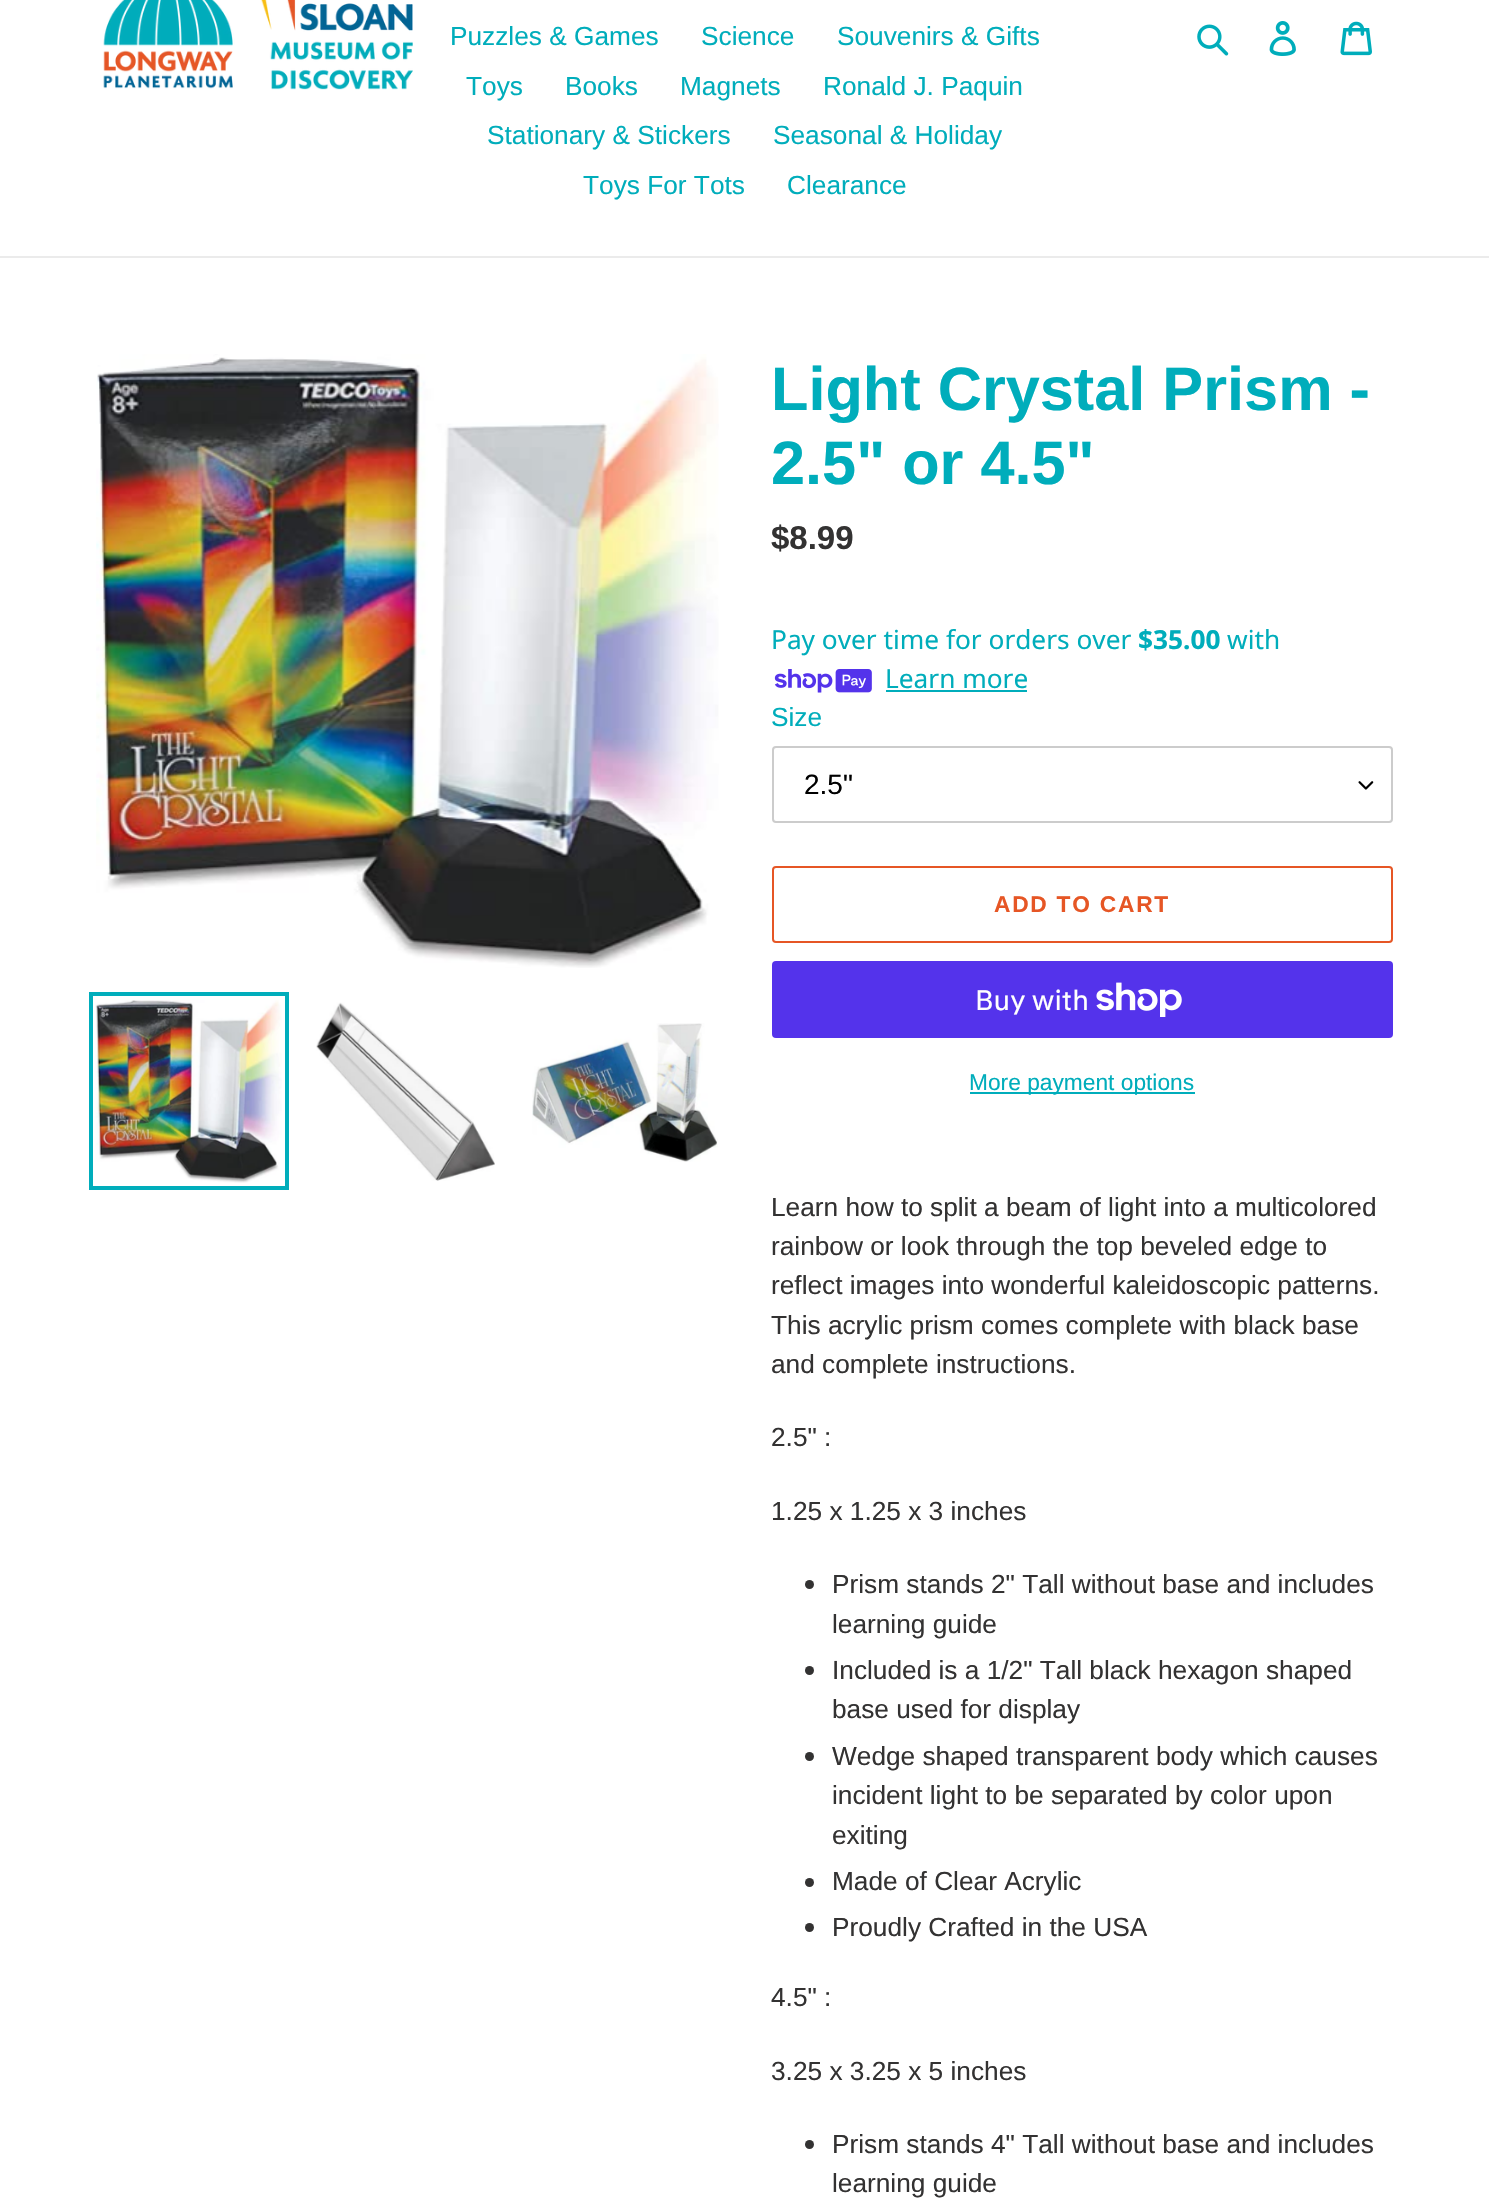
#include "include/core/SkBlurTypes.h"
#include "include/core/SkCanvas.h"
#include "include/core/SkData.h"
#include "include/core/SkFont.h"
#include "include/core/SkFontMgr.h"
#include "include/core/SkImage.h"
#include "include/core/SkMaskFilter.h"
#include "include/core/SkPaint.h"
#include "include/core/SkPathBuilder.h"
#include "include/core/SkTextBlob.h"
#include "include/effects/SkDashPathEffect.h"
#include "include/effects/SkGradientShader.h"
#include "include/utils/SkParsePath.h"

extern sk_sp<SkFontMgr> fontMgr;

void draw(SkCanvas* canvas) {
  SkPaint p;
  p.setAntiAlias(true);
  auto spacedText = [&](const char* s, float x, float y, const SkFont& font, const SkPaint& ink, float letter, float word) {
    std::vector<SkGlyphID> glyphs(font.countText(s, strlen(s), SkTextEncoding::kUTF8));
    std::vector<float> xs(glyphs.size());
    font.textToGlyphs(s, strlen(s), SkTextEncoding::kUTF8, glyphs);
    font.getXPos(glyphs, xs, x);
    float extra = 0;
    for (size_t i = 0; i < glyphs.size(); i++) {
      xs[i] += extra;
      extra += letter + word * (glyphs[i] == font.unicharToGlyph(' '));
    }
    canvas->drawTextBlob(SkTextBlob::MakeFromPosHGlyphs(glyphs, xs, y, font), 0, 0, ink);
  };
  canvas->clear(SK_ColorWHITE);
  p.setColor(SkColorSetRGB(235, 235, 235));
  canvas->drawRect(SkRect::MakeLTRB(0, 256, 1489, 258), p);
  canvas->drawImageRect(SkImages::DeferredFromEncodedData(SkData::MakeFromFileName("images/1.png")), SkRect::MakeLTRB(103, 0, 413, 90), SkSamplingOptions());
  canvas->drawImageRect(SkImages::DeferredFromEncodedData(SkData::MakeFromFileName("images/2.png")), SkRect::MakeLTRB(1197, 24, 1229, 56), SkSamplingOptions());
  canvas->drawImageRect(SkImages::DeferredFromEncodedData(SkData::MakeFromFileName("images/3.png")), SkRect::MakeLTRB(1269, 21, 1296, 56), SkSamplingOptions());
  canvas->drawImageRect(SkImages::DeferredFromEncodedData(SkData::MakeFromFileName("images/4.png")), SkRect::MakeLTRB(1340, 21, 1372, 56), SkSamplingOptions());
  canvas->drawImageRect(SkImages::DeferredFromEncodedData(SkData::MakeFromFileName("images/5.png")), SkRect::MakeLTRB(96, 354, 719, 968), SkSamplingOptions());
  p.setStyle(SkPaint::kStroke_Style);
  p.setStrokeWidth(4);
  p.setColor(SkColorSetRGB(0, 173, 187));
  canvas->drawRect(SkRect::MakeLTRB(91, 994, 287, 1188), p);
  canvas->drawImageRect(SkImages::DeferredFromEncodedData(SkData::MakeFromFileName("images/6.png")), SkRect::MakeLTRB(95, 1000, 282, 1183), SkSamplingOptions());
  canvas->drawImageRect(SkImages::DeferredFromEncodedData(SkData::MakeFromFileName("images/7.png")), SkRect::MakeLTRB(316, 1002, 495, 1181), SkSamplingOptions());
  canvas->drawImageRect(SkImages::DeferredFromEncodedData(SkData::MakeFromFileName("images/8.png")), SkRect::MakeLTRB(532, 1023, 718, 1162), SkSamplingOptions());
  canvas->drawImageRect(SkImages::DeferredFromEncodedData(SkData::MakeFromFileName("images/9.png")), SkRect::MakeLTRB(774, 669, 872, 693), SkSamplingOptions());
  p.setStyle(SkPaint::kFill_Style);
  canvas->drawRect(SkRect::MakeLTRB(886, 690, 1027, 692), p);
  canvas->drawImageRect(SkImages::DeferredFromEncodedData(SkData::MakeFromFileName("images/10.png")), SkRect::MakeLTRB(1358, 781, 1374, 790), SkSamplingOptions());
  p.setStyle(SkPaint::kStroke_Style);
  p.setStrokeWidth(2);
  p.setColor(SkColorSetRGB(204, 204, 204));
  canvas->drawRoundRect(SkRect::MakeLTRB(773, 747, 1392, 822), 3, 3, p);
  p.setColor(SkColorSetRGB(230, 86, 37));
  canvas->drawRoundRect(SkRect::MakeLTRB(773, 867, 1392, 942), 3, 3, p);
  p.setStyle(SkPaint::kFill_Style);
  p.setColor(SkColorSetRGB(84, 51, 235));
  canvas->drawRoundRect(SkRect::MakeLTRB(772, 961, 1393, 1038), 4, 4, p);
  canvas->drawImageRect(SkImages::DeferredFromEncodedData(SkData::MakeFromFileName("images/11.png")), SkRect::MakeLTRB(1096, 982, 1182, 1017), SkSamplingOptions());
  p.setColor(SkColorSetRGB(0, 173, 187));
  canvas->drawRect(SkRect::MakeLTRB(970, 1092, 1195, 1094), p);
  p.setColor(SkColorSetRGB(51, 50, 50));
  canvas->drawCircle(809.5f, 1584.5f, 4.5f, p);
  canvas->drawCircle(809.5f, 1670.5f, 4.5f, p);
  canvas->drawCircle(809.5f, 1756.5f, 4.5f, p);
  canvas->drawCircle(809.5f, 1882.5f, 4.5f, p);
  canvas->drawCircle(809.5f, 1927.5f, 4.5f, p);
  canvas->drawCircle(809.5f, 2144.5f, 4.5f, p);
  SkFont font1(fontMgr->matchFamilyStyle("Liberation Sans", SkFontStyle::Normal()), 26.25f);
  font1.setSubpixel(true);
  p.setColor(SkColorSetRGB(0, 173, 187));
  canvas->drawString("Puzzles & Games", 450, 45, font1, p);
  canvas->drawString("Science", 701, 45, font1, p);
  canvas->drawString("Souvenirs & Gifts", 837, 45, font1, p);
  canvas->drawString("Toys", 466, 95, font1, p);
  canvas->drawString("Books", 565, 95, font1, p);
  canvas->drawString("Magnets", 680, 95, font1, p);
  canvas->drawString("Ronald J. Paquin", 823, 95, font1, p);
  canvas->drawString("Stationary & Stickers", 487, 144, font1, p);
  canvas->drawString("Seasonal & Holiday", 773, 144, font1, p);
  canvas->drawString("Toys For Tots", 583, 194, font1, p);
  canvas->drawString("Clearance", 787, 194, font1, p);
  SkFont font2(fontMgr->matchFamilyStyle("Liberation Sans", SkFontStyle::Bold()), 61.25f);
  font2.setSubpixel(true);
  canvas->drawString("Light Crystal Prism -", 771, 410, font2, p);
  canvas->drawString("2.5\" or 4.5\"", 771, 484, font2, p);
  SkFont font3(fontMgr->matchFamilyStyle("Liberation Sans", SkFontStyle::Bold()), 33);
  font3.setSubpixel(true);
  p.setColor(SkColorSetRGB(51, 50, 50));
  canvas->drawString("$8.99", 771, 549, font3, p);
  SkFont font4(fontMgr->matchFamilyStyle("Noto Sans", SkFontStyle::Normal()), 26.25f);
  font4.setSubpixel(true);
  p.setColor(SkColorSetRGB(0, 173, 187));
  canvas->drawString("Pay over time for orders over", 771, 649, font4, p);
  SkFont font5(fontMgr->matchFamilyStyle("Noto Sans", SkFontStyle::Bold()), 26.25f);
  font5.setSubpixel(true);
  canvas->drawString("$35.00", 1138, 649, font5, p);
  canvas->drawString("with", 1227, 649, font4, p);
  canvas->drawString("Learn more", 885, 688, font4, p);
  canvas->drawString("Size", 771, 726, font1, p);
  SkFont font6(fontMgr->matchFamilyStyle("Liberation Sans", SkFontStyle::Normal()), 28);
  font6.setSubpixel(true);
  p.setColor(SK_ColorBLACK);
  canvas->drawString("2.5\"", 804, 794, font6, p);
  SkFont font7(fontMgr->matchFamilyStyle("Liberation Sans", SkFontStyle::Bold()), 22.75f);
  font7.setSubpixel(true);
  p.setColor(SkColorSetRGB(230, 86, 37));
  spacedText("ADD TO CART", 994, 912, font7, p, 1.75f, 0);
  SkFont font8(fontMgr->matchFamilyStyle("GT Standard", SkFontStyle::Normal()), 28);
  font8.setSubpixel(true);
  p.setColor(SK_ColorWHITE);
  canvas->drawString("Buy with", 975, 1010, font8, p);
  SkFont font9(fontMgr->matchFamilyStyle("Liberation Sans", SkFontStyle::Normal()), 22.75f);
  font9.setSubpixel(true);
  p.setColor(SkColorSetRGB(0, 173, 187));
  canvas->drawString("More payment options", 969, 1090, font9, p);
  p.setColor(SkColorSetRGB(51, 50, 50));
  canvas->drawString("Learn how to split a beam of light into a multicolored", 771, 1216, font1, p);
  canvas->drawString("rainbow or look through the top beveled edge to", 771, 1255, font1, p);
  canvas->drawString("reflect images into wonderful kaleidoscopic patterns.", 771, 1294, font1, p);
  canvas->drawString("This acrylic prism comes complete with black base", 771, 1334, font1, p);
  canvas->drawString("and complete instructions.", 771, 1373, font1, p);
  canvas->drawString("2.5\" :", 771, 1446, font1, p);
  canvas->drawString("1.25 x 1.25 x 3 inches", 771, 1520, font1, p);
  canvas->drawString("Prism stands 2\" Tall without base and includes", 832, 1593, font1, p);
  canvas->drawString("learning guide", 832, 1633, font1, p);
  canvas->drawString("Included is a 1/2\" Tall black hexagon shaped", 832, 1679, font1, p);
  canvas->drawString("base used for display", 832, 1718, font1, p);
  canvas->drawString("Wedge shaped transparent body which causes", 832, 1765, font1, p);
  canvas->drawString("incident light to be separated by color upon", 832, 1804, font1, p);
  canvas->drawString("exiting", 832, 1844, font1, p);
  canvas->drawString("Made of Clear Acrylic", 832, 1890, font1, p);
  canvas->drawString("Proudly Crafted in the USA", 832, 1936, font1, p);
  canvas->drawString("4.5\" :", 771, 2006, font1, p);
  canvas->drawString("3.25 x 3.25 x 5 inches", 771, 2080, font1, p);
  canvas->drawString("Prism stands 4\" Tall without base and includes", 832, 2153, font1, p);
  canvas->drawString("learning guide", 832, 2192, font1, p);
}
